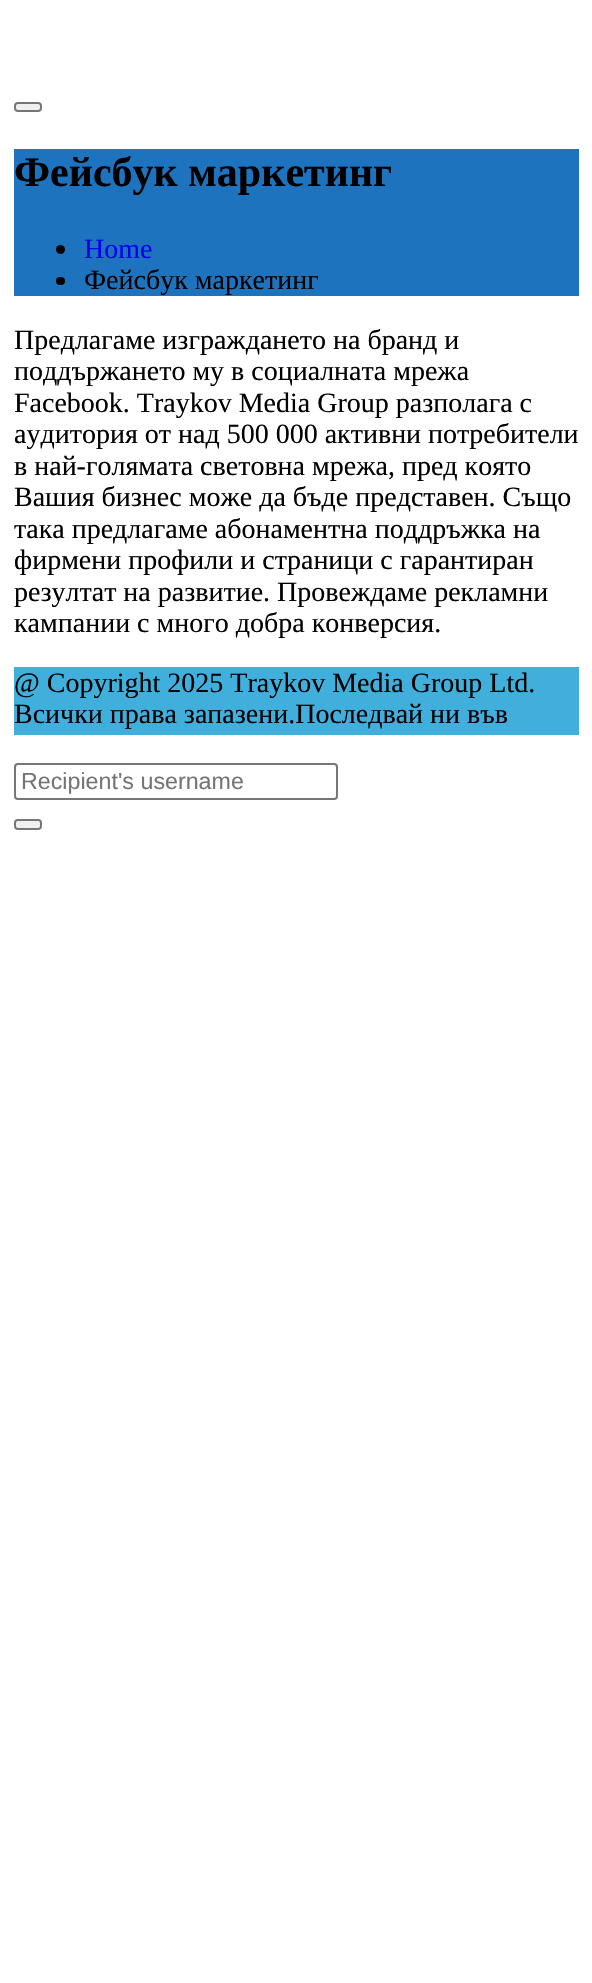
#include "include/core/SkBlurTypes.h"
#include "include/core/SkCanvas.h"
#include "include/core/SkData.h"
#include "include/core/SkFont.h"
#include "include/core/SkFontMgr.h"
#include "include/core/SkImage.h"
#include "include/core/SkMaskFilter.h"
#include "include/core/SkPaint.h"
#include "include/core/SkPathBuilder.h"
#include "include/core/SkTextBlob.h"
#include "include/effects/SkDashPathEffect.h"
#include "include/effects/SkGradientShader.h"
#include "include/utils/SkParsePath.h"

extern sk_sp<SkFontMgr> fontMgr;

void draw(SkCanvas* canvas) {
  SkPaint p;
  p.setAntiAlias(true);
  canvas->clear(SK_ColorWHITE);
  p.setColor(SkColorSetRGB(239, 239, 239));
  canvas->drawRoundRect(SkRect::MakeLTRB(15, 103, 41, 111), 3, 3, p);
  p.setStyle(SkPaint::kStroke_Style);
  p.setStrokeWidth(2);
  p.setColor(SkColorSetRGB(118, 118, 118));
  canvas->drawRoundRect(SkRect::MakeLTRB(15, 103, 41, 111), 3, 3, p);
  p.setStyle(SkPaint::kFill_Style);
  p.setColor(SkColorSetRGB(30, 115, 190));
  canvas->drawRect(SkRect::MakeLTRB(14, 149, 579, 296), p);
  p.setColor(SK_ColorBLACK);
  canvas->drawCircle(60.5f, 249.5f, 4.5f, p);
  canvas->drawRoundRect(SkRect::MakeLTRB(56, 277, 65, 285), 4, 4, p);
  p.setColor(SkColorSetRGB(64, 175, 220));
  canvas->drawRect(SkRect::MakeLTRB(14, 667, 579, 735), p);
  p.setStyle(SkPaint::kStroke_Style);
  p.setColor(SkColorSetRGB(118, 118, 118));
  canvas->drawRoundRect(SkRect::MakeLTRB(15, 764, 337, 799), 3, 3, p);
  p.setStyle(SkPaint::kFill_Style);
  p.setColor(SkColorSetRGB(239, 239, 239));
  canvas->drawRoundRect(SkRect::MakeLTRB(15, 820, 41, 829), 3, 3, p);
  p.setStyle(SkPaint::kStroke_Style);
  p.setColor(SkColorSetRGB(118, 118, 118));
  canvas->drawRoundRect(SkRect::MakeLTRB(15, 820, 41, 829), 3, 3, p);
  SkFont font1(fontMgr->matchFamilyStyle("Liberation Serif", SkFontStyle::Bold()), 42);
  font1.setSubpixel(true);
  p.setStyle(SkPaint::kFill_Style);
  p.setColor(SK_ColorBLACK);
  canvas->drawString("Фейсбук маркетинг", 14, 186, font1, p);
  SkFont font2(fontMgr->matchFamilyStyle("Liberation Serif", SkFontStyle::Normal()), 28);
  font2.setSubpixel(true);
  p.setColor(SkColorSetRGB(0, 0, 238));
  canvas->drawString("Home", 84, 258, font2, p);
  p.setColor(SK_ColorBLACK);
  canvas->drawString("Фейсбук маркетинг", 84, 289, font2, p);
  canvas->drawString("Предлагаме изграждането на бранд и", 14, 349, font2, p);
  canvas->drawString("поддържането му в социалната мрежа", 14, 380, font2, p);
  canvas->drawString("Facebook. Traykov Media Group разполага с", 14, 412, font2, p);
  canvas->drawString("аудитория от над 500 000 активни потребители", 14, 443, font2, p);
  canvas->drawString("в най-голямата световна мрежа, пред която", 14, 475, font2, p);
  canvas->drawString("Вашия бизнес може да бъде представен. Също", 14, 506, font2, p);
  canvas->drawString("така предлагаме абонаментна поддръжка на", 14, 538, font2, p);
  canvas->drawString("фирмени профили и страници с гарантиран", 14, 569, font2, p);
  canvas->drawString("резултат на развитие. Провеждаме рекламни", 14, 601, font2, p);
  canvas->drawString("кампании с много добра конверсия.", 14, 632, font2, p);
  canvas->drawString("@ Copyright 2025 Traykov Media Group Ltd.", 14, 692, font2, p);
  canvas->drawString("Всички права запазени.Последвай ни във", 14, 723, font2, p);
  SkFont font3(fontMgr->matchFamilyStyle("Liberation Sans", SkFontStyle::Normal()), 23.25f);
  font3.setSubpixel(true);
  p.setColor(SkColorSetRGB(117, 117, 117));
  canvas->drawString("Recipient's username", 21, 789, font3, p);
}
